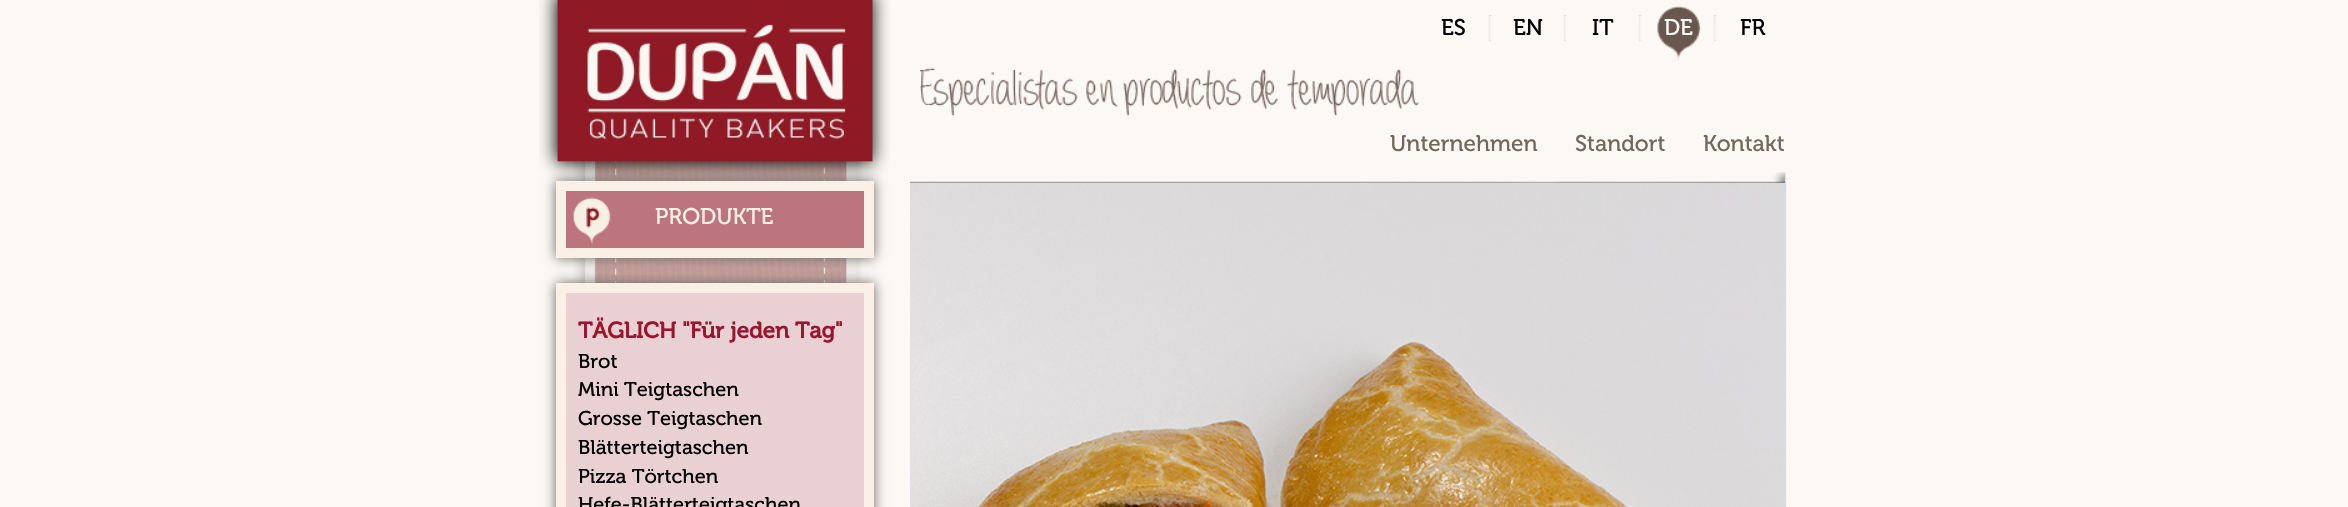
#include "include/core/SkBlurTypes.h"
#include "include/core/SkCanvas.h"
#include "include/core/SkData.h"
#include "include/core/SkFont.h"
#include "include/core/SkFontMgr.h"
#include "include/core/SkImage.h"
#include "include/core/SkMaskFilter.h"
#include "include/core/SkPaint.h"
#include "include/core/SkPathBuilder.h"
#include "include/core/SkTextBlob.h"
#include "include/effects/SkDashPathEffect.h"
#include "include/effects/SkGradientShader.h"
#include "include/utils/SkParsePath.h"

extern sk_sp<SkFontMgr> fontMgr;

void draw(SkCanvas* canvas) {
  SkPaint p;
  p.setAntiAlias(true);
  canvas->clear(SkColorSetRGB(252, 249, 244));
  canvas->drawImageRect(SkImages::DeferredFromEncodedData(SkData::MakeFromFileName("images/7.png")), SkRect::MakeLTRB(573, 161, 862, 283), SkSamplingOptions());
  p.setColor(SkColorSetRGB(102, 102, 102));
  p.setMaskFilter(SkMaskFilter::MakeBlur(kNormal_SkBlurStyle, 6));
  canvas->drawRect(SkRect::MakeLTRB(556, 181, 874, 258), p);
  p.setMaskFilter(nullptr);
  canvas->drawImageRect(SkImages::DeferredFromEncodedData(SkData::MakeFromFileName("images/1.png")), SkRect::MakeLTRB(539, 0, 890, 180), SkSamplingOptions());
  canvas->drawImageRect(SkImages::DeferredFromEncodedData(SkData::MakeFromFileName("images/2.png")), SkRect::MakeLTRB(1488, 15, 1492, 42), SkSamplingOptions());
  canvas->drawImageRect(SkImages::DeferredFromEncodedData(SkData::MakeFromFileName("images/2.png")), SkRect::MakeLTRB(1563, 15, 1567, 42), SkSamplingOptions());
  canvas->drawImageRect(SkImages::DeferredFromEncodedData(SkData::MakeFromFileName("images/2.png")), SkRect::MakeLTRB(1638, 15, 1642, 42), SkSamplingOptions());
  canvas->drawImageRect(SkImages::DeferredFromEncodedData(SkData::MakeFromFileName("images/3.png")), SkRect::MakeLTRB(1657, 6, 1701, 60), SkSamplingOptions());
  canvas->drawImageRect(SkImages::DeferredFromEncodedData(SkData::MakeFromFileName("images/2.png")), SkRect::MakeLTRB(1713, 15, 1717, 42), SkSamplingOptions());
  canvas->drawImageRect(SkImages::DeferredFromEncodedData(SkData::MakeFromFileName("images/4.png")), SkRect::MakeLTRB(919, 68, 1419, 116), SkSamplingOptions());
  canvas->drawImageRect(SkImages::DeferredFromEncodedData(SkData::MakeFromFileName("images/5.png")), SkRect::MakeLTRB(910, 172, 1787, 507), SkSamplingOptions());
  canvas->drawImageRect(SkImages::DeferredFromEncodedData(SkData::MakeFromFileName("images/6.png")), SkRect::MakeLTRB(910, 182, 1785, 507), SkSamplingOptions());
  p.setColor(SkColorSetRGB(188, 117, 124));
  canvas->drawRect(SkRect::MakeLTRB(566, 191, 864, 248), p);
  canvas->drawImageRect(SkImages::DeferredFromEncodedData(SkData::MakeFromFileName("images/8.png")), SkRect::MakeLTRB(573, 197, 611, 244), SkSamplingOptions());
  p.setStyle(SkPaint::kStroke_Style);
  p.setStrokeWidth(10);
  p.setColor(SkColorSetRGB(250, 240, 230));
  canvas->drawRect(SkRect::MakeLTRB(561, 186, 869, 253), p);
  p.setStyle(SkPaint::kFill_Style);
  p.setColor(SkColorSetRGB(102, 102, 102));
  p.setMaskFilter(SkMaskFilter::MakeBlur(kNormal_SkBlurStyle, 6));
  canvas->drawRect(SkRect::MakeLTRB(556, 283, 874, 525), p);
  p.setMaskFilter(nullptr);
  p.setColor(SkColorSetRGB(233, 209, 211));
  canvas->drawRect(SkRect::MakeLTRB(561, 288, 869, 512), p);
  p.setStyle(SkPaint::kStroke_Style);
  p.setColor(SkColorSetRGB(250, 240, 230));
  canvas->drawRect(SkRect::MakeLTRB(561, 288, 869, 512), p);
  SkFont font1(fontMgr->matchFamilyStyle("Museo", SkFontStyle::Normal()), 22.5f);
  font1.setSubpixel(true);
  p.setStyle(SkPaint::kFill_Style);
  p.setColor(SK_ColorBLACK);
  canvas->drawString("ES", 1441, 35, font1, p);
  canvas->drawString("EN", 1513, 35, font1, p);
  canvas->drawString("IT", 1592, 35, font1, p);
  p.setColor(SkColorSetRGB(252, 249, 244));
  canvas->drawString("DE", 1664, 35, font1, p);
  p.setColor(SK_ColorBLACK);
  canvas->drawString("FR", 1740, 35, font1, p);
  p.setColor(SkColorSetRGB(113, 103, 91));
  canvas->drawString("Unternehmen", 1390, 151, font1, p);
  canvas->drawString("Standort", 1575, 151, font1, p);
  canvas->drawString("Kontakt", 1703, 151, font1, p);
  p.setColor(SkColorSetRGB(250, 240, 230));
  canvas->drawString("PRODUKTE", 655, 224, font1, p);
  SkFont font2(fontMgr->matchFamilyStyle("Museo", SkFontStyle::Bold()), 22.5f);
  font2.setSubpixel(true);
  p.setColor(SkColorSetRGB(155, 21, 45));
  canvas->drawString("TÄGLICH \"Für jeden Tag\"", 578, 338, font2, p);
  SkFont font3(fontMgr->matchFamilyStyle("Museo", SkFontStyle::Normal()), 20);
  font3.setSubpixel(true);
  p.setColor(SK_ColorBLACK);
  canvas->drawString("Brot", 578, 368, font3, p);
  canvas->drawString("Mini Teigtaschen", 578, 396, font3, p);
  canvas->drawString("Grosse Teigtaschen", 578, 425, font3, p);
  canvas->drawString("Blätterteigtaschen", 578, 454, font3, p);
  canvas->drawString("Pizza Törtchen", 578, 483, font3, p);
  canvas->drawString("Hefe-Blätterteigtaschen", 578, 511, font3, p);
}
